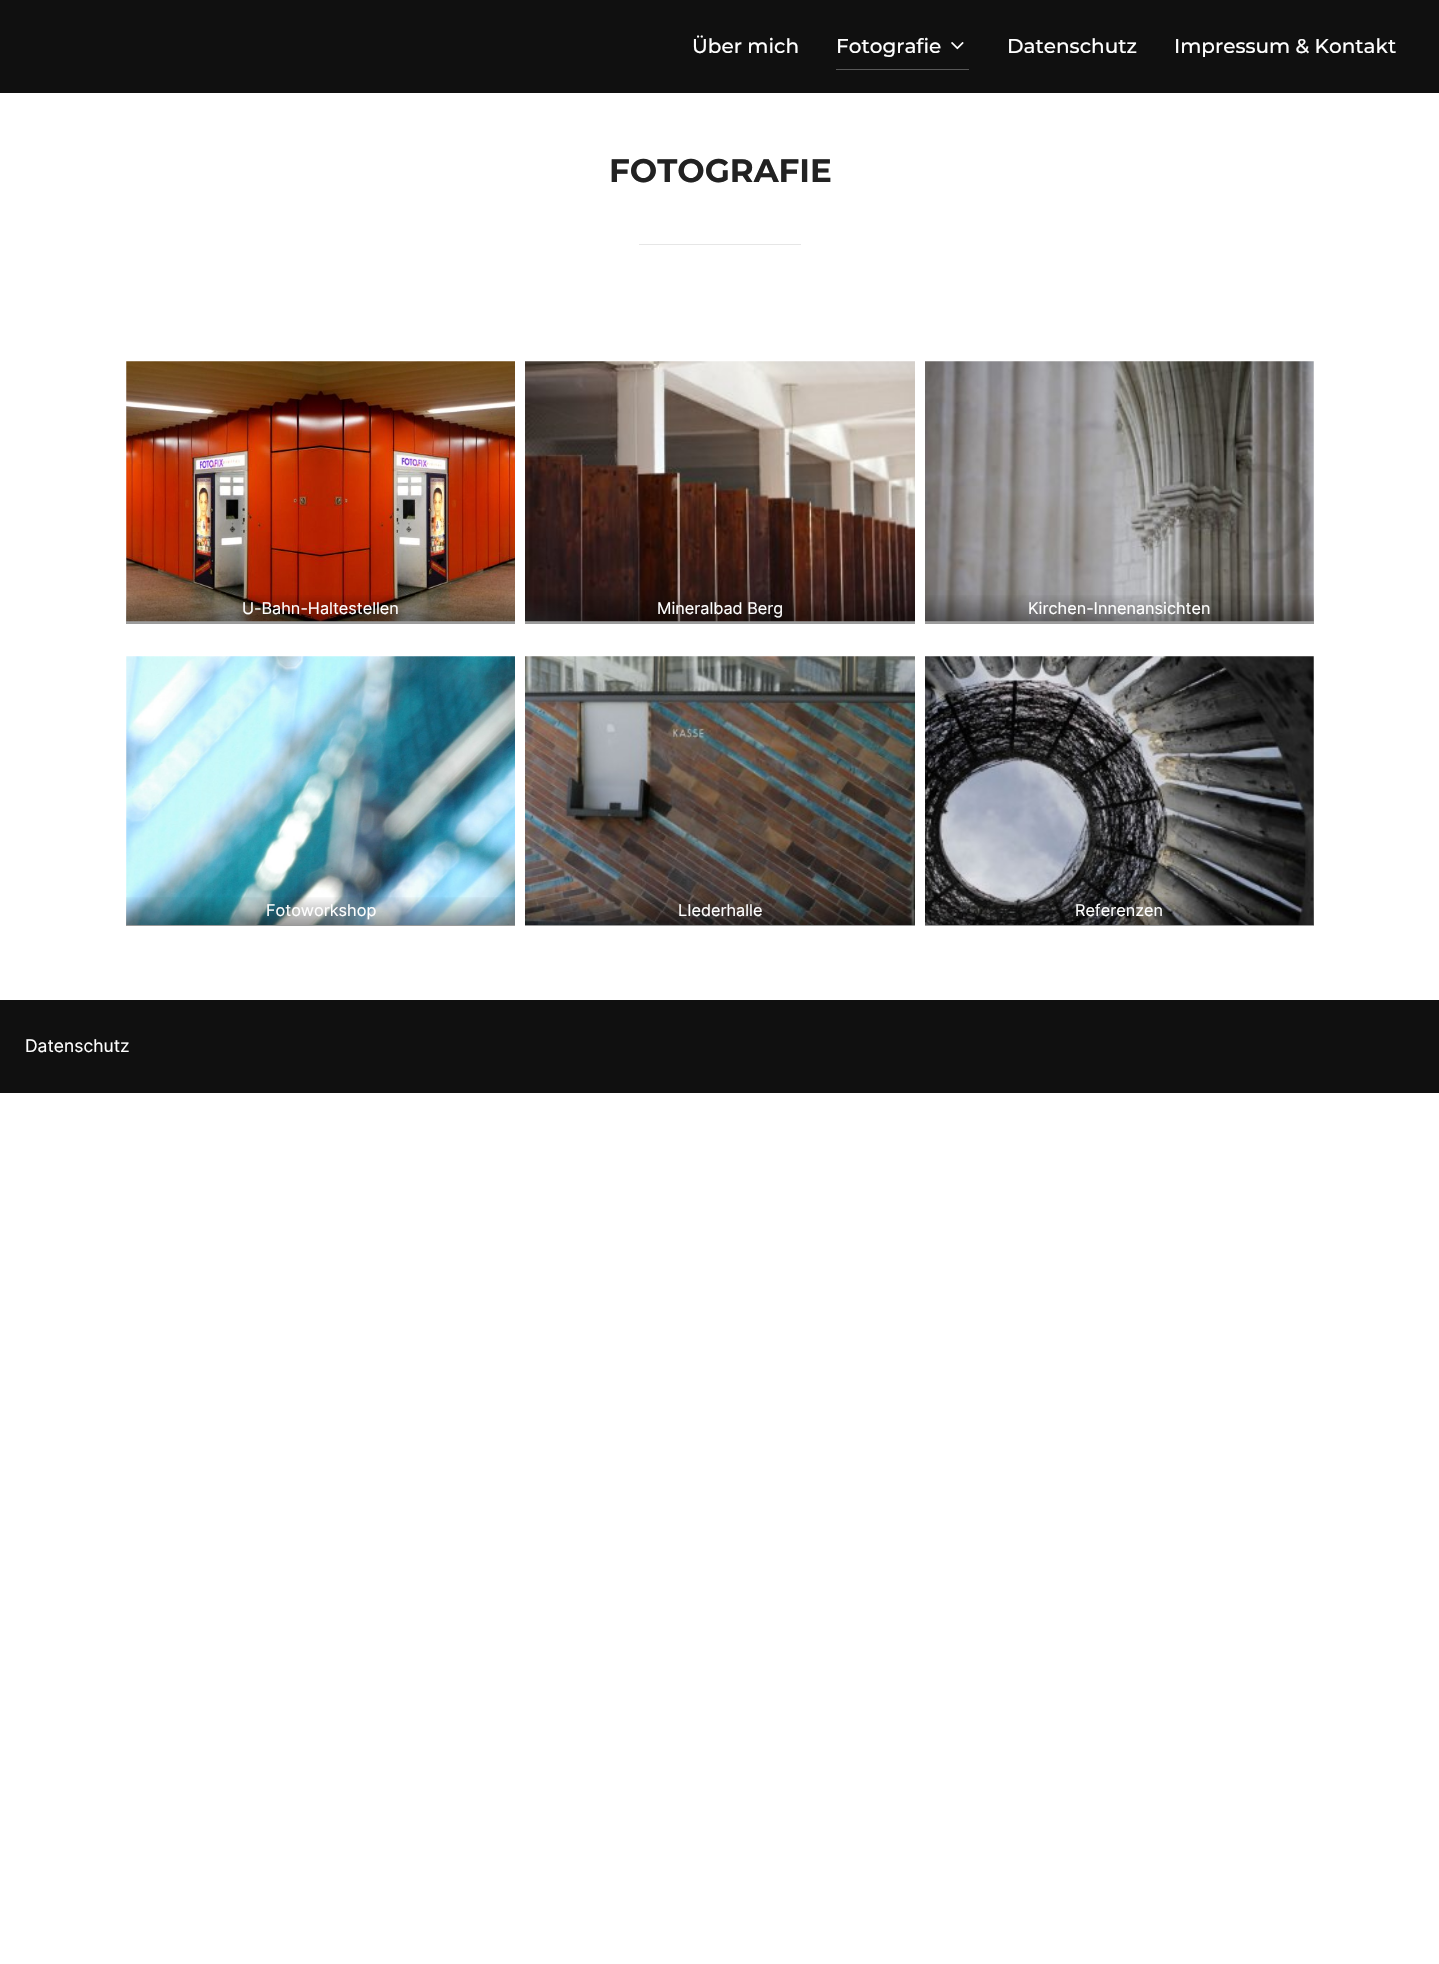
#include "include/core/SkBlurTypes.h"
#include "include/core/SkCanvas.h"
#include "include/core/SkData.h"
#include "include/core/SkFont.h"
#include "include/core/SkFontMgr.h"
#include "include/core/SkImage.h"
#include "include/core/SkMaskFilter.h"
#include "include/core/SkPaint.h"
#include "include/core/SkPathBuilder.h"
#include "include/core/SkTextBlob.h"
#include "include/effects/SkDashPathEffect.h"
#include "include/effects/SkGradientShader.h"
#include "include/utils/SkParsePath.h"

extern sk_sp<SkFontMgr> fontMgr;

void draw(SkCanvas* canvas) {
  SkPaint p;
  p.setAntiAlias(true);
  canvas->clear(SK_ColorWHITE);
  p.setColor(SkColorSetRGB(16, 16, 16));
  canvas->drawRect(SkRect::MakeLTRB(0, 0, 1439, 93), p);
  p.setColor(SkColorSetRGB(88, 88, 88));
  canvas->drawRect(SkRect::MakeLTRB(836, 69, 969, 70), p);
  canvas->drawImageRect(SkImages::DeferredFromEncodedData(SkData::MakeFromFileName("images/1.png")), SkRect::MakeLTRB(951, 42, 964, 50), SkSamplingOptions());
  p.setColor(SkColorSetRGB(230, 230, 230));
  canvas->drawRect(SkRect::MakeLTRB(639, 244, 801, 245), p);
  canvas->drawImageRect(SkImages::DeferredFromEncodedData(SkData::MakeFromFileName("images/2.png")), SkRect::MakeLTRB(126, 361, 515, 622), SkSamplingOptions());
  {
    const SkColor colors[] = {SkColorSetARGB(102, 0, 0, 0), SkColorSetARGB(0, 0, 0, 0)};
    const float stops[] = {0, 1};
    const SkPoint ends[] = {{321, 624}, {321, 593}};
    p.setShader(SkGradientShader::MakeLinear(ends, colors, stops, 2, SkTileMode::kClamp));
    p.setAlpha(255);
  }
  canvas->drawRect(SkRect::MakeLTRB(126, 595, 515, 624), p);
  canvas->drawImageRect(SkImages::DeferredFromEncodedData(SkData::MakeFromFileName("images/3.png")), SkRect::MakeLTRB(525, 361, 915, 622), SkSamplingOptions());
  {
    const SkColor colors[] = {SkColorSetARGB(102, 0, 0, 0), SkColorSetARGB(0, 0, 0, 0)};
    const float stops[] = {0, 1};
    const SkPoint ends[] = {{720, 624}, {720, 593}};
    p.setShader(SkGradientShader::MakeLinear(ends, colors, stops, 2, SkTileMode::kClamp));
    p.setAlpha(255);
  }
  canvas->drawRect(SkRect::MakeLTRB(525, 595, 915, 624), p);
  canvas->drawImageRect(SkImages::DeferredFromEncodedData(SkData::MakeFromFileName("images/4.png")), SkRect::MakeLTRB(925, 361, 1314, 622), SkSamplingOptions());
  {
    const SkColor colors[] = {SkColorSetARGB(102, 0, 0, 0), SkColorSetARGB(0, 0, 0, 0)};
    const float stops[] = {0, 1};
    const SkPoint ends[] = {{1119, 624}, {1119, 593}};
    p.setShader(SkGradientShader::MakeLinear(ends, colors, stops, 2, SkTileMode::kClamp));
    p.setAlpha(255);
  }
  canvas->drawRect(SkRect::MakeLTRB(925, 595, 1314, 624), p);
  canvas->drawImageRect(SkImages::DeferredFromEncodedData(SkData::MakeFromFileName("images/5.png")), SkRect::MakeLTRB(126, 656, 515, 925), SkSamplingOptions());
  {
    const SkColor colors[] = {SkColorSetARGB(102, 0, 0, 0), SkColorSetARGB(0, 0, 0, 0)};
    const float stops[] = {0, 1};
    const SkPoint ends[] = {{321, 926}, {321, 895}};
    p.setShader(SkGradientShader::MakeLinear(ends, colors, stops, 2, SkTileMode::kClamp));
    p.setAlpha(255);
  }
  canvas->drawRect(SkRect::MakeLTRB(126, 897, 515, 926), p);
  canvas->drawImageRect(SkImages::DeferredFromEncodedData(SkData::MakeFromFileName("images/6.png")), SkRect::MakeLTRB(525, 656, 915, 925), SkSamplingOptions());
  {
    const SkColor colors[] = {SkColorSetARGB(102, 0, 0, 0), SkColorSetARGB(0, 0, 0, 0)};
    const float stops[] = {0, 1};
    const SkPoint ends[] = {{720, 926}, {720, 895}};
    p.setShader(SkGradientShader::MakeLinear(ends, colors, stops, 2, SkTileMode::kClamp));
    p.setAlpha(255);
  }
  canvas->drawRect(SkRect::MakeLTRB(525, 897, 915, 926), p);
  canvas->drawImageRect(SkImages::DeferredFromEncodedData(SkData::MakeFromFileName("images/7.png")), SkRect::MakeLTRB(925, 656, 1314, 925), SkSamplingOptions());
  {
    const SkColor colors[] = {SkColorSetARGB(102, 0, 0, 0), SkColorSetARGB(0, 0, 0, 0)};
    const float stops[] = {0, 1};
    const SkPoint ends[] = {{1119, 926}, {1119, 895}};
    p.setShader(SkGradientShader::MakeLinear(ends, colors, stops, 2, SkTileMode::kClamp));
    p.setAlpha(255);
  }
  canvas->drawRect(SkRect::MakeLTRB(925, 897, 1314, 926), p);
  p.setShader(nullptr);
  p.setColor(SkColorSetRGB(16, 16, 16));
  canvas->drawRect(SkRect::MakeLTRB(0, 1000, 1439, 1093), p);
  SkFont font1(fontMgr->matchFamilyStyle("Montserrat", SkFontStyle(500, SkFontStyle::kNormal_Width, SkFontStyle::kUpright_Slant)), 20);
  font1.setSubpixel(true);
  p.setColor(SK_ColorWHITE);
  canvas->drawString("Über mich", 692, 53, font1, p);
  canvas->drawString("Fotografie", 836, 53, font1, p);
  canvas->drawString("Datenschutz", 1007, 53, font1, p);
  canvas->drawString("Impressum & Kontakt", 1174, 53, font1, p);
  SkFont font2(fontMgr->matchFamilyStyle("Montserrat", SkFontStyle::Bold()), 32.5f);
  font2.setSubpixel(true);
  p.setColor(SkColorSetRGB(34, 34, 34));
  canvas->drawString("FOTOGRAFIE", 609, 182, font2, p);
  SkFont font3(fontMgr->matchFamilyStyle("Inter", SkFontStyle::Normal()), 16.25f);
  font3.setSubpixel(true);
  p.setColor(SK_ColorWHITE);
  canvas->drawString("U-Bahn-Haltestellen", 242, 614, font3, p);
  canvas->drawString("Mineralbad Berg", 657, 614, font3, p);
  canvas->drawString("Kirchen-Innenansichten", 1028, 614, font3, p);
  canvas->drawString("Fotoworkshop", 266, 916, font3, p);
  canvas->drawString("LIederhalle", 678, 916, font3, p);
  canvas->drawString("Referenzen", 1075, 916, font3, p);
  SkFont font4(fontMgr->matchFamilyStyle("Inter", SkFontStyle::Normal()), 17.5f);
  font4.setSubpixel(true);
  canvas->drawString("Datenschutz", 25, 1052, font4, p);
}
